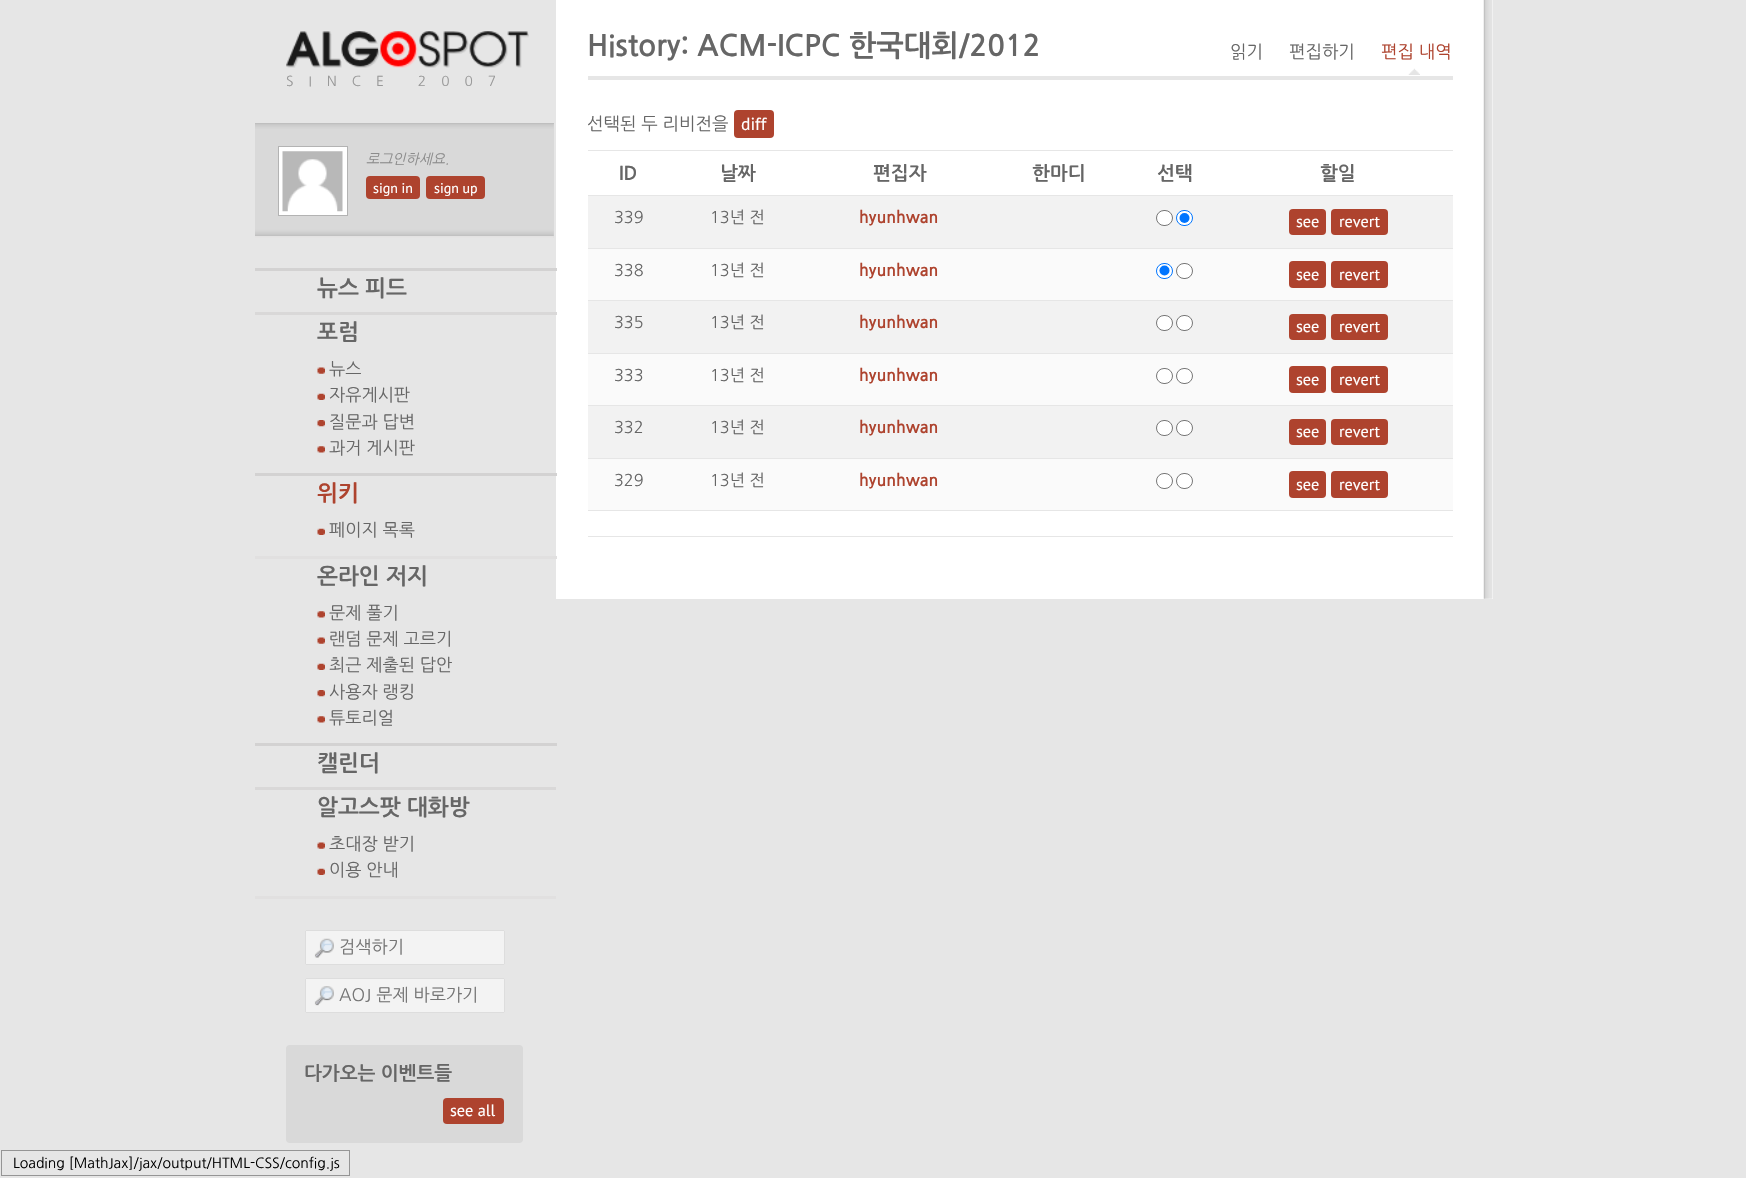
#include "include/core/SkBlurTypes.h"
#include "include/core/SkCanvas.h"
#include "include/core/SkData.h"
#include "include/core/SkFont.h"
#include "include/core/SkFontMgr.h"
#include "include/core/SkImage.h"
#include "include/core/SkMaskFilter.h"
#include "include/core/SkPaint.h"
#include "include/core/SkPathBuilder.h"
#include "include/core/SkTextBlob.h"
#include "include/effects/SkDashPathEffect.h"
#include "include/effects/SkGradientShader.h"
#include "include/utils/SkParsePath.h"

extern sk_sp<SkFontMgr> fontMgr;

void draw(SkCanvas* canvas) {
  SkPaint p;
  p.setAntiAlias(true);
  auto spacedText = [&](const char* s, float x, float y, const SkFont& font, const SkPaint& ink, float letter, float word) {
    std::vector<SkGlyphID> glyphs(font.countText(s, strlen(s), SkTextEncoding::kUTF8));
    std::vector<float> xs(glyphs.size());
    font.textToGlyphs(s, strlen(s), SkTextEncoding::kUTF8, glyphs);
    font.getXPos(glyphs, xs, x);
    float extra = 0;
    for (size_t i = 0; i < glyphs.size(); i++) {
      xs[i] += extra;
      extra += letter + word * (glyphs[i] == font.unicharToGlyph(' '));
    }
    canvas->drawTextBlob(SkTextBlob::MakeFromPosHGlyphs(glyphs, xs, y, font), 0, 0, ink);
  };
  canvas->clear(SkColorSetRGB(230, 230, 230));
  canvas->drawImageRect(SkImages::DeferredFromEncodedData(SkData::MakeFromFileName("images/1.png")), SkRect::MakeLTRB(286, 31, 529, 68), SkSamplingOptions());
  p.setColor(SkColorSetRGB(217, 217, 217));
  canvas->drawRect(SkRect::MakeLTRB(255, 124, 554, 238), p);
  canvas->drawImageRect(SkImages::DeferredFromEncodedData(SkData::MakeFromFileName("images/2.png")), SkRect::MakeLTRB(255, 124, 554, 238), SkSamplingOptions());
  p.setColor(SkColorSetRGB(191, 191, 191));
  canvas->drawRect(SkRect::MakeLTRB(255, 123, 554, 124), p);
  p.setColor(SK_ColorWHITE);
  canvas->drawRect(SkRect::MakeLTRB(278.5f, 146.5f, 347.5f, 215.5f), p);
  p.setStyle(SkPaint::kStroke_Style);
  p.setStrokeWidth(1);
  p.setColor(SkColorSetRGB(179, 179, 179));
  canvas->drawRect(SkRect::MakeLTRB(278.5f, 146.5f, 347.5f, 215.5f), p);
  canvas->drawImageRect(SkImages::DeferredFromEncodedData(SkData::MakeFromFileName("images/3.png")), SkRect::MakeLTRB(282, 151, 343, 212), SkSamplingOptions());
  p.setStyle(SkPaint::kFill_Style);
  p.setColor(SkColorSetRGB(174, 67, 46));
  canvas->drawRoundRect(SkRect::MakeLTRB(366, 176, 420, 199), 4, 4, p);
  canvas->drawRoundRect(SkRect::MakeLTRB(426, 176, 485, 199), 4, 4, p);
  p.setColor(SkColorSetRGB(225, 224, 224));
  canvas->drawRect(SkRect::MakeLTRB(255, 896, 556, 899), p);
  p.setColor(SK_ColorWHITE);
  canvas->drawRect(SkRect::MakeLTRB(556, 0, 1493, 599), p);
  p.setColor(SkColorSetRGB(211, 210, 210));
  canvas->drawRect(SkRect::MakeLTRB(255, 268, 557, 271), p);
  p.setColor(SkColorSetRGB(217, 216, 216));
  canvas->drawRect(SkRect::MakeLTRB(255, 312, 557, 315), p);
  canvas->drawImageRect(SkImages::DeferredFromEncodedData(SkData::MakeFromFileName("images/4.png")), SkRect::MakeLTRB(317, 367, 325, 374), SkSamplingOptions());
  canvas->drawImageRect(SkImages::DeferredFromEncodedData(SkData::MakeFromFileName("images/5.png")), SkRect::MakeLTRB(317, 393, 325, 400), SkSamplingOptions());
  canvas->drawImageRect(SkImages::DeferredFromEncodedData(SkData::MakeFromFileName("images/6.png")), SkRect::MakeLTRB(317, 420, 325, 427), SkSamplingOptions());
  canvas->drawImageRect(SkImages::DeferredFromEncodedData(SkData::MakeFromFileName("images/7.png")), SkRect::MakeLTRB(317, 446, 325, 453), SkSamplingOptions());
  p.setColor(SkColorSetRGB(211, 210, 210));
  canvas->drawRect(SkRect::MakeLTRB(255, 473, 557, 476), p);
  canvas->drawImageRect(SkImages::DeferredFromEncodedData(SkData::MakeFromFileName("images/5.png")), SkRect::MakeLTRB(317, 528, 325, 535), SkSamplingOptions());
  p.setColor(SkColorSetRGB(225, 224, 224));
  canvas->drawRect(SkRect::MakeLTRB(255, 556, 557, 559), p);
  canvas->drawImageRect(SkImages::DeferredFromEncodedData(SkData::MakeFromFileName("images/7.png")), SkRect::MakeLTRB(317, 611, 325, 618), SkSamplingOptions());
  canvas->drawImageRect(SkImages::DeferredFromEncodedData(SkData::MakeFromFileName("images/4.png")), SkRect::MakeLTRB(317, 637, 325, 644), SkSamplingOptions());
  canvas->drawImageRect(SkImages::DeferredFromEncodedData(SkData::MakeFromFileName("images/5.png")), SkRect::MakeLTRB(317, 663, 325, 670), SkSamplingOptions());
  canvas->drawImageRect(SkImages::DeferredFromEncodedData(SkData::MakeFromFileName("images/6.png")), SkRect::MakeLTRB(317, 690, 325, 697), SkSamplingOptions());
  canvas->drawImageRect(SkImages::DeferredFromEncodedData(SkData::MakeFromFileName("images/7.png")), SkRect::MakeLTRB(317, 716, 325, 723), SkSamplingOptions());
  p.setColor(SkColorSetRGB(211, 210, 210));
  canvas->drawRect(SkRect::MakeLTRB(255, 743, 557, 746), p);
  p.setColor(SkColorSetRGB(217, 216, 216));
  canvas->drawRect(SkRect::MakeLTRB(255, 787, 556, 790), p);
  canvas->drawImageRect(SkImages::DeferredFromEncodedData(SkData::MakeFromFileName("images/4.png")), SkRect::MakeLTRB(317, 842, 325, 849), SkSamplingOptions());
  canvas->drawImageRect(SkImages::DeferredFromEncodedData(SkData::MakeFromFileName("images/5.png")), SkRect::MakeLTRB(317, 868, 325, 875), SkSamplingOptions());
  p.setColor(SkColorSetRGB(243, 243, 243));
  canvas->drawRoundRect(SkRect::MakeLTRB(305, 930, 505, 965), 1, 1, p);
  canvas->drawImageRect(SkImages::DeferredFromEncodedData(SkData::MakeFromFileName("images/8.png")), SkRect::MakeLTRB(314, 938, 334, 958), SkSamplingOptions());
  p.setStyle(SkPaint::kStroke_Style);
  p.setColor(SkColorSetRGB(221, 221, 221));
  canvas->drawRoundRect(SkRect::MakeLTRB(305.5f, 930.5f, 504.5f, 964.5f), 0.5f, 0.5f, p);
  p.setStyle(SkPaint::kFill_Style);
  p.setColor(SkColorSetRGB(243, 243, 243));
  canvas->drawRoundRect(SkRect::MakeLTRB(305, 978, 505, 1013), 1, 1, p);
  canvas->drawImageRect(SkImages::DeferredFromEncodedData(SkData::MakeFromFileName("images/9.png")), SkRect::MakeLTRB(314, 986, 334, 1006), SkSamplingOptions());
  p.setStyle(SkPaint::kStroke_Style);
  p.setColor(SkColorSetRGB(221, 221, 221));
  canvas->drawRoundRect(SkRect::MakeLTRB(305.5f, 978.5f, 504.5f, 1012.5f), 0.5f, 0.5f, p);
  p.setStyle(SkPaint::kFill_Style);
  p.setColor(SkColorSetRGB(217, 217, 217));
  canvas->drawRoundRect(SkRect::MakeLTRB(286, 1045, 523, 1143), 4, 4, p);
  p.setColor(SkColorSetRGB(174, 67, 46));
  canvas->drawRoundRect(SkRect::MakeLTRB(443, 1098, 504, 1124), 4, 4, p);
  canvas->drawImageRect(SkImages::DeferredFromEncodedData(SkData::MakeFromFileName("images/10.png")), SkRect::MakeLTRB(1483, 0, 1493, 599), SkSamplingOptions());
  p.setColor(SkColorSetRGB(230, 230, 230));
  canvas->drawRect(SkRect::MakeLTRB(588, 76, 1453, 80), p);
  canvas->drawImageRect(SkImages::DeferredFromEncodedData(SkData::MakeFromFileName("images/11.png")), SkRect::MakeLTRB(1408, 68, 1420, 75), SkSamplingOptions());
  p.setColor(SkColorSetRGB(174, 67, 46));
  canvas->drawRoundRect(SkRect::MakeLTRB(734, 110, 774, 138), 4, 4, p);
  p.setColor(SkColorSetRGB(230, 230, 230));
  canvas->drawRect(SkRect::MakeLTRB(588, 150, 1453, 151), p);
  canvas->drawRect(SkRect::MakeLTRB(588, 510, 1453, 511), p);
  canvas->drawRect(SkRect::MakeLTRB(588, 195, 1453, 196), p);
  p.setColor(SkColorSetRGB(242, 242, 242));
  canvas->drawRect(SkRect::MakeLTRB(588, 196, 1453, 248), p);
  p.setColor(SK_ColorWHITE);
  canvas->drawRoundRect(SkRect::MakeLTRB(1156.5f, 210.5f, 1172.5f, 225.5f), 7.5f, 7.5f, p);
  p.setStyle(SkPaint::kStroke_Style);
  p.setColor(SkColorSetRGB(118, 118, 118));
  canvas->drawRoundRect(SkRect::MakeLTRB(1156.5f, 210.5f, 1172.5f, 225.5f), 7.5f, 7.5f, p);
  p.setStyle(SkPaint::kFill_Style);
  p.setColor(SK_ColorWHITE);
  canvas->drawRoundRect(SkRect::MakeLTRB(1176.5f, 210.5f, 1192.5f, 225.5f), 7.5f, 7.5f, p);
  p.setStyle(SkPaint::kStroke_Style);
  p.setColor(SkColorSetRGB(0, 117, 255));
  canvas->drawRoundRect(SkRect::MakeLTRB(1176.5f, 210.5f, 1192.5f, 225.5f), 7.5f, 7.5f, p);
  p.setStyle(SkPaint::kFill_Style);
  canvas->drawCircle(1184.5f, 218, 5, p);
  p.setColor(SkColorSetRGB(230, 230, 230));
  canvas->drawRect(SkRect::MakeLTRB(588, 248, 1453, 249), p);
  p.setColor(SkColorSetRGB(174, 67, 46));
  canvas->drawRoundRect(SkRect::MakeLTRB(1289, 209, 1326, 235), 4, 4, p);
  canvas->drawRoundRect(SkRect::MakeLTRB(1331, 209, 1388, 235), 4, 4, p);
  p.setColor(SkColorSetRGB(250, 250, 250));
  canvas->drawRect(SkRect::MakeLTRB(588, 249, 1453, 300), p);
  p.setColor(SK_ColorWHITE);
  canvas->drawRoundRect(SkRect::MakeLTRB(1156.5f, 263.5f, 1172.5f, 278.5f), 7.5f, 7.5f, p);
  p.setStyle(SkPaint::kStroke_Style);
  p.setColor(SkColorSetRGB(0, 117, 255));
  canvas->drawRoundRect(SkRect::MakeLTRB(1156.5f, 263.5f, 1172.5f, 278.5f), 7.5f, 7.5f, p);
  p.setStyle(SkPaint::kFill_Style);
  canvas->drawCircle(1164.5f, 270.5f, 5, p);
  p.setColor(SK_ColorWHITE);
  canvas->drawRoundRect(SkRect::MakeLTRB(1176.5f, 263.5f, 1192.5f, 278.5f), 7.5f, 7.5f, p);
  p.setStyle(SkPaint::kStroke_Style);
  p.setColor(SkColorSetRGB(118, 118, 118));
  canvas->drawRoundRect(SkRect::MakeLTRB(1176.5f, 263.5f, 1192.5f, 278.5f), 7.5f, 7.5f, p);
  p.setStyle(SkPaint::kFill_Style);
  p.setColor(SkColorSetRGB(230, 230, 230));
  canvas->drawRect(SkRect::MakeLTRB(588, 300, 1453, 301), p);
  p.setColor(SkColorSetRGB(174, 67, 46));
  canvas->drawRoundRect(SkRect::MakeLTRB(1289, 261, 1326, 288), 4, 4, p);
  canvas->drawRoundRect(SkRect::MakeLTRB(1331, 261, 1388, 288), 4, 4, p);
  p.setColor(SkColorSetRGB(242, 242, 242));
  canvas->drawRect(SkRect::MakeLTRB(588, 301, 1453, 353), p);
  p.setColor(SK_ColorWHITE);
  canvas->drawRoundRect(SkRect::MakeLTRB(1156.5f, 315.5f, 1172.5f, 330.5f), 7.5f, 7.5f, p);
  p.setStyle(SkPaint::kStroke_Style);
  p.setColor(SkColorSetRGB(118, 118, 118));
  canvas->drawRoundRect(SkRect::MakeLTRB(1156.5f, 315.5f, 1172.5f, 330.5f), 7.5f, 7.5f, p);
  p.setStyle(SkPaint::kFill_Style);
  p.setColor(SK_ColorWHITE);
  canvas->drawRoundRect(SkRect::MakeLTRB(1176.5f, 315.5f, 1192.5f, 330.5f), 7.5f, 7.5f, p);
  p.setStyle(SkPaint::kStroke_Style);
  p.setColor(SkColorSetRGB(118, 118, 118));
  canvas->drawRoundRect(SkRect::MakeLTRB(1176.5f, 315.5f, 1192.5f, 330.5f), 7.5f, 7.5f, p);
  p.setStyle(SkPaint::kFill_Style);
  p.setColor(SkColorSetRGB(230, 230, 230));
  canvas->drawRect(SkRect::MakeLTRB(588, 353, 1453, 354), p);
  p.setColor(SkColorSetRGB(174, 67, 46));
  canvas->drawRoundRect(SkRect::MakeLTRB(1289, 314, 1326, 340), 4, 4, p);
  canvas->drawRoundRect(SkRect::MakeLTRB(1331, 314, 1388, 340), 4, 4, p);
  p.setColor(SkColorSetRGB(250, 250, 250));
  canvas->drawRect(SkRect::MakeLTRB(588, 354, 1453, 405), p);
  p.setColor(SK_ColorWHITE);
  canvas->drawRoundRect(SkRect::MakeLTRB(1156.5f, 368.5f, 1172.5f, 383.5f), 7.5f, 7.5f, p);
  p.setStyle(SkPaint::kStroke_Style);
  p.setColor(SkColorSetRGB(118, 118, 118));
  canvas->drawRoundRect(SkRect::MakeLTRB(1156.5f, 368.5f, 1172.5f, 383.5f), 7.5f, 7.5f, p);
  p.setStyle(SkPaint::kFill_Style);
  p.setColor(SK_ColorWHITE);
  canvas->drawRoundRect(SkRect::MakeLTRB(1176.5f, 368.5f, 1192.5f, 383.5f), 7.5f, 7.5f, p);
  p.setStyle(SkPaint::kStroke_Style);
  p.setColor(SkColorSetRGB(118, 118, 118));
  canvas->drawRoundRect(SkRect::MakeLTRB(1176.5f, 368.5f, 1192.5f, 383.5f), 7.5f, 7.5f, p);
  p.setStyle(SkPaint::kFill_Style);
  p.setColor(SkColorSetRGB(230, 230, 230));
  canvas->drawRect(SkRect::MakeLTRB(588, 405, 1453, 406), p);
  p.setColor(SkColorSetRGB(174, 67, 46));
  canvas->drawRoundRect(SkRect::MakeLTRB(1289, 366, 1326, 393), 4, 4, p);
  canvas->drawRoundRect(SkRect::MakeLTRB(1331, 366, 1388, 393), 4, 4, p);
  p.setColor(SkColorSetRGB(242, 242, 242));
  canvas->drawRect(SkRect::MakeLTRB(588, 406, 1453, 458), p);
  p.setColor(SK_ColorWHITE);
  canvas->drawRoundRect(SkRect::MakeLTRB(1156.5f, 420.5f, 1172.5f, 435.5f), 7.5f, 7.5f, p);
  p.setStyle(SkPaint::kStroke_Style);
  p.setColor(SkColorSetRGB(118, 118, 118));
  canvas->drawRoundRect(SkRect::MakeLTRB(1156.5f, 420.5f, 1172.5f, 435.5f), 7.5f, 7.5f, p);
  p.setStyle(SkPaint::kFill_Style);
  p.setColor(SK_ColorWHITE);
  canvas->drawRoundRect(SkRect::MakeLTRB(1176.5f, 420.5f, 1192.5f, 435.5f), 7.5f, 7.5f, p);
  p.setStyle(SkPaint::kStroke_Style);
  p.setColor(SkColorSetRGB(118, 118, 118));
  canvas->drawRoundRect(SkRect::MakeLTRB(1176.5f, 420.5f, 1192.5f, 435.5f), 7.5f, 7.5f, p);
  p.setStyle(SkPaint::kFill_Style);
  p.setColor(SkColorSetRGB(230, 230, 230));
  canvas->drawRect(SkRect::MakeLTRB(588, 458, 1453, 459), p);
  p.setColor(SkColorSetRGB(174, 67, 46));
  canvas->drawRoundRect(SkRect::MakeLTRB(1289, 419, 1326, 445), 4, 4, p);
  canvas->drawRoundRect(SkRect::MakeLTRB(1331, 419, 1388, 445), 4, 4, p);
  p.setColor(SkColorSetRGB(250, 250, 250));
  canvas->drawRect(SkRect::MakeLTRB(588, 459, 1453, 510), p);
  p.setColor(SK_ColorWHITE);
  canvas->drawRoundRect(SkRect::MakeLTRB(1156.5f, 473.5f, 1172.5f, 488.5f), 7.5f, 7.5f, p);
  p.setStyle(SkPaint::kStroke_Style);
  p.setColor(SkColorSetRGB(118, 118, 118));
  canvas->drawRoundRect(SkRect::MakeLTRB(1156.5f, 473.5f, 1172.5f, 488.5f), 7.5f, 7.5f, p);
  p.setStyle(SkPaint::kFill_Style);
  p.setColor(SK_ColorWHITE);
  canvas->drawRoundRect(SkRect::MakeLTRB(1176.5f, 473.5f, 1192.5f, 488.5f), 7.5f, 7.5f, p);
  p.setStyle(SkPaint::kStroke_Style);
  p.setColor(SkColorSetRGB(118, 118, 118));
  canvas->drawRoundRect(SkRect::MakeLTRB(1176.5f, 473.5f, 1192.5f, 488.5f), 7.5f, 7.5f, p);
  p.setStyle(SkPaint::kFill_Style);
  p.setColor(SkColorSetRGB(174, 67, 46));
  canvas->drawRoundRect(SkRect::MakeLTRB(1289, 471, 1326, 498), 4, 4, p);
  canvas->drawRoundRect(SkRect::MakeLTRB(1331, 471, 1388, 498), 4, 4, p);
  p.setColor(SkColorSetRGB(230, 230, 230));
  canvas->drawRect(SkRect::MakeLTRB(588, 536, 1453, 537), p);
  p.setStyle(SkPaint::kStroke_Style);
  p.setColor(SkColorSetRGB(149, 149, 149));
  canvas->drawRect(SkRect::MakeLTRB(1.5f, 1150.5f, 349.5f, 1175.5f), p);
  SkFont font1(fontMgr->matchFamilyStyle("NanumGothic", SkFontStyle::Normal()), 13.75f);
  font1.setSubpixel(true);
  p.setStyle(SkPaint::kFill_Style);
  p.setColor(SkColorSetRGB(153, 153, 153));
  spacedText("SINCE 2007", 286, 86, font1, p, 15, 0);
  SkFont font2(fontMgr->matchFamilyStyle("NanumGothic", SkFontStyle::Italic()), 14);
  font2.setSubpixel(true);
  p.setColor(SkColorSetRGB(140, 140, 140));
  canvas->drawString("로그인하세요.", 366, 164, font2, p);
  SkFont font3(fontMgr->matchFamilyStyle("PT Sans", SkFontStyle::Normal()), 14);
  font3.setSubpixel(true);
  p.setColor(SK_ColorWHITE);
  canvas->drawString("sign in", 373, 193, font3, p);
  canvas->drawString("sign up", 434, 193, font3, p);
  SkFont font4(fontMgr->matchFamilyStyle("NanumGothic", SkFontStyle::Bold()), 22.25f);
  font4.setSubpixel(true);
  p.setColor(SkColorSetRGB(102, 102, 102));
  canvas->drawString("뉴스 피드", 317, 296, font4, p);
  canvas->drawString("포럼", 317, 340, font4, p);
  SkFont font5(fontMgr->matchFamilyStyle("NanumGothic", SkFontStyle::Normal()), 17.25f);
  font5.setSubpixel(true);
  canvas->drawString("뉴스", 329, 375, font5, p);
  canvas->drawString("자유게시판", 329, 401, font5, p);
  canvas->drawString("질문과 답변", 329, 428, font5, p);
  canvas->drawString("과거 게시판", 329, 454, font5, p);
  p.setColor(SkColorSetRGB(174, 67, 46));
  canvas->drawString("위키", 317, 501, font4, p);
  p.setColor(SkColorSetRGB(102, 102, 102));
  canvas->drawString("페이지 목록", 329, 536, font5, p);
  canvas->drawString("온라인 저지", 317, 584, font4, p);
  canvas->drawString("문제 풀기", 329, 619, font5, p);
  canvas->drawString("랜덤 문제 고르기", 329, 645, font5, p);
  canvas->drawString("최근 제출된 답안", 329, 671, font5, p);
  canvas->drawString("사용자 랭킹", 329, 698, font5, p);
  canvas->drawString("튜토리얼", 329, 724, font5, p);
  canvas->drawString("캘린더", 317, 771, font4, p);
  canvas->drawString("알고스팟 대화방", 317, 815, font4, p);
  canvas->drawString("초대장 받기", 329, 850, font5, p);
  canvas->drawString("이용 안내", 329, 876, font5, p);
  p.setColor(SkColorSetRGB(117, 117, 117));
  canvas->drawString("검색하기", 339, 953, font5, p);
  canvas->drawString("AOJ 문제 바로가기", 339, 1001, font5, p);
  SkFont font6(fontMgr->matchFamilyStyle("NanumGothic", SkFontStyle::Bold()), 19);
  font6.setSubpixel(true);
  p.setColor(SkColorSetRGB(102, 102, 102));
  canvas->drawString("다가오는 이벤트들", 304, 1080, font6, p);
  SkFont font7(fontMgr->matchFamilyStyle("PT Sans", SkFontStyle::Normal()), 16.25f);
  font7.setSubpixel(true);
  p.setColor(SK_ColorWHITE);
  canvas->drawString("see all", 450, 1116, font7, p);
  SkFont font8(fontMgr->matchFamilyStyle("NanumGothic", SkFontStyle::Bold()), 29.25f);
  font8.setSubpixel(true);
  p.setColor(SkColorSetRGB(102, 102, 102));
  canvas->drawString("History: ACM-ICPC 한국대회/2012", 587, 56, font8, p);
  SkFont font9(fontMgr->matchFamilyStyle("NanumGothic", SkFontStyle::Normal()), 17.5f);
  font9.setSubpixel(true);
  canvas->drawString("읽기", 1230, 58, font9, p);
  canvas->drawString("편집하기", 1289, 58, font9, p);
  p.setColor(SkColorSetRGB(174, 67, 46));
  canvas->drawString("편집 내역", 1381, 58, font9, p);
  p.setColor(SkColorSetRGB(102, 102, 102));
  canvas->drawString("선택된 두 리비전을", 587, 130, font9, p);
  SkFont font10(fontMgr->matchFamilyStyle("PT Sans", SkFontStyle::Normal()), 17.5f);
  font10.setSubpixel(true);
  p.setColor(SK_ColorWHITE);
  canvas->drawString("diff", 741, 130, font10, p);
  p.setColor(SkColorSetRGB(102, 102, 102));
  canvas->drawString("ID", 619, 180, font6, p);
  canvas->drawString("날짜", 720, 180, font6, p);
  canvas->drawString("편집자", 873, 180, font6, p);
  canvas->drawString("한마디", 1032, 180, font6, p);
  canvas->drawString("선택", 1157, 180, font6, p);
  canvas->drawString("할일", 1320, 180, font6, p);
  SkFont font11(fontMgr->matchFamilyStyle("NanumGothic", SkFontStyle::Normal()), 16.25f);
  font11.setSubpixel(true);
  canvas->drawString("339", 614, 223, font11, p);
  canvas->drawString("13년 전", 710, 223, font11, p);
  SkFont font12(fontMgr->matchFamilyStyle("NanumGothic", SkFontStyle::Bold()), 16.25f);
  font12.setSubpixel(true);
  p.setColor(SkColorSetRGB(174, 67, 46));
  canvas->drawString("hyunhwan", 859, 223, font12, p);
  p.setColor(SK_ColorWHITE);
  canvas->drawString("see", 1296, 227, font7, p);
  canvas->drawString("revert", 1339, 227, font7, p);
  p.setColor(SkColorSetRGB(102, 102, 102));
  canvas->drawString("338", 614, 276, font11, p);
  canvas->drawString("13년 전", 710, 276, font11, p);
  p.setColor(SkColorSetRGB(174, 67, 46));
  canvas->drawString("hyunhwan", 859, 276, font12, p);
  p.setColor(SK_ColorWHITE);
  canvas->drawString("see", 1296, 280, font7, p);
  canvas->drawString("revert", 1339, 280, font7, p);
  p.setColor(SkColorSetRGB(102, 102, 102));
  canvas->drawString("335", 614, 328, font11, p);
  canvas->drawString("13년 전", 710, 328, font11, p);
  p.setColor(SkColorSetRGB(174, 67, 46));
  canvas->drawString("hyunhwan", 859, 328, font12, p);
  p.setColor(SK_ColorWHITE);
  canvas->drawString("see", 1296, 332, font7, p);
  canvas->drawString("revert", 1339, 332, font7, p);
  p.setColor(SkColorSetRGB(102, 102, 102));
  canvas->drawString("333", 614, 381, font11, p);
  canvas->drawString("13년 전", 710, 381, font11, p);
  p.setColor(SkColorSetRGB(174, 67, 46));
  canvas->drawString("hyunhwan", 859, 381, font12, p);
  p.setColor(SK_ColorWHITE);
  canvas->drawString("see", 1296, 385, font7, p);
  canvas->drawString("revert", 1339, 385, font7, p);
  p.setColor(SkColorSetRGB(102, 102, 102));
  canvas->drawString("332", 614, 433, font11, p);
  canvas->drawString("13년 전", 710, 433, font11, p);
  p.setColor(SkColorSetRGB(174, 67, 46));
  canvas->drawString("hyunhwan", 859, 433, font12, p);
  p.setColor(SK_ColorWHITE);
  canvas->drawString("see", 1296, 437, font7, p);
  canvas->drawString("revert", 1339, 437, font7, p);
  p.setColor(SkColorSetRGB(102, 102, 102));
  canvas->drawString("329", 614, 486, font11, p);
  canvas->drawString("13년 전", 710, 486, font11, p);
  p.setColor(SkColorSetRGB(174, 67, 46));
  canvas->drawString("hyunhwan", 859, 486, font12, p);
  p.setColor(SK_ColorWHITE);
  canvas->drawString("see", 1296, 490, font7, p);
  canvas->drawString("revert", 1339, 490, font7, p);
  SkFont font13(fontMgr->matchFamilyStyle("NanumGothic", SkFontStyle::Normal()), 14);
  font13.setSubpixel(true);
  p.setColor(SK_ColorBLACK);
  canvas->drawString("Loading [MathJax]/jax/output/HTML-CSS/config.js", 13, 1168, font13, p);
}
